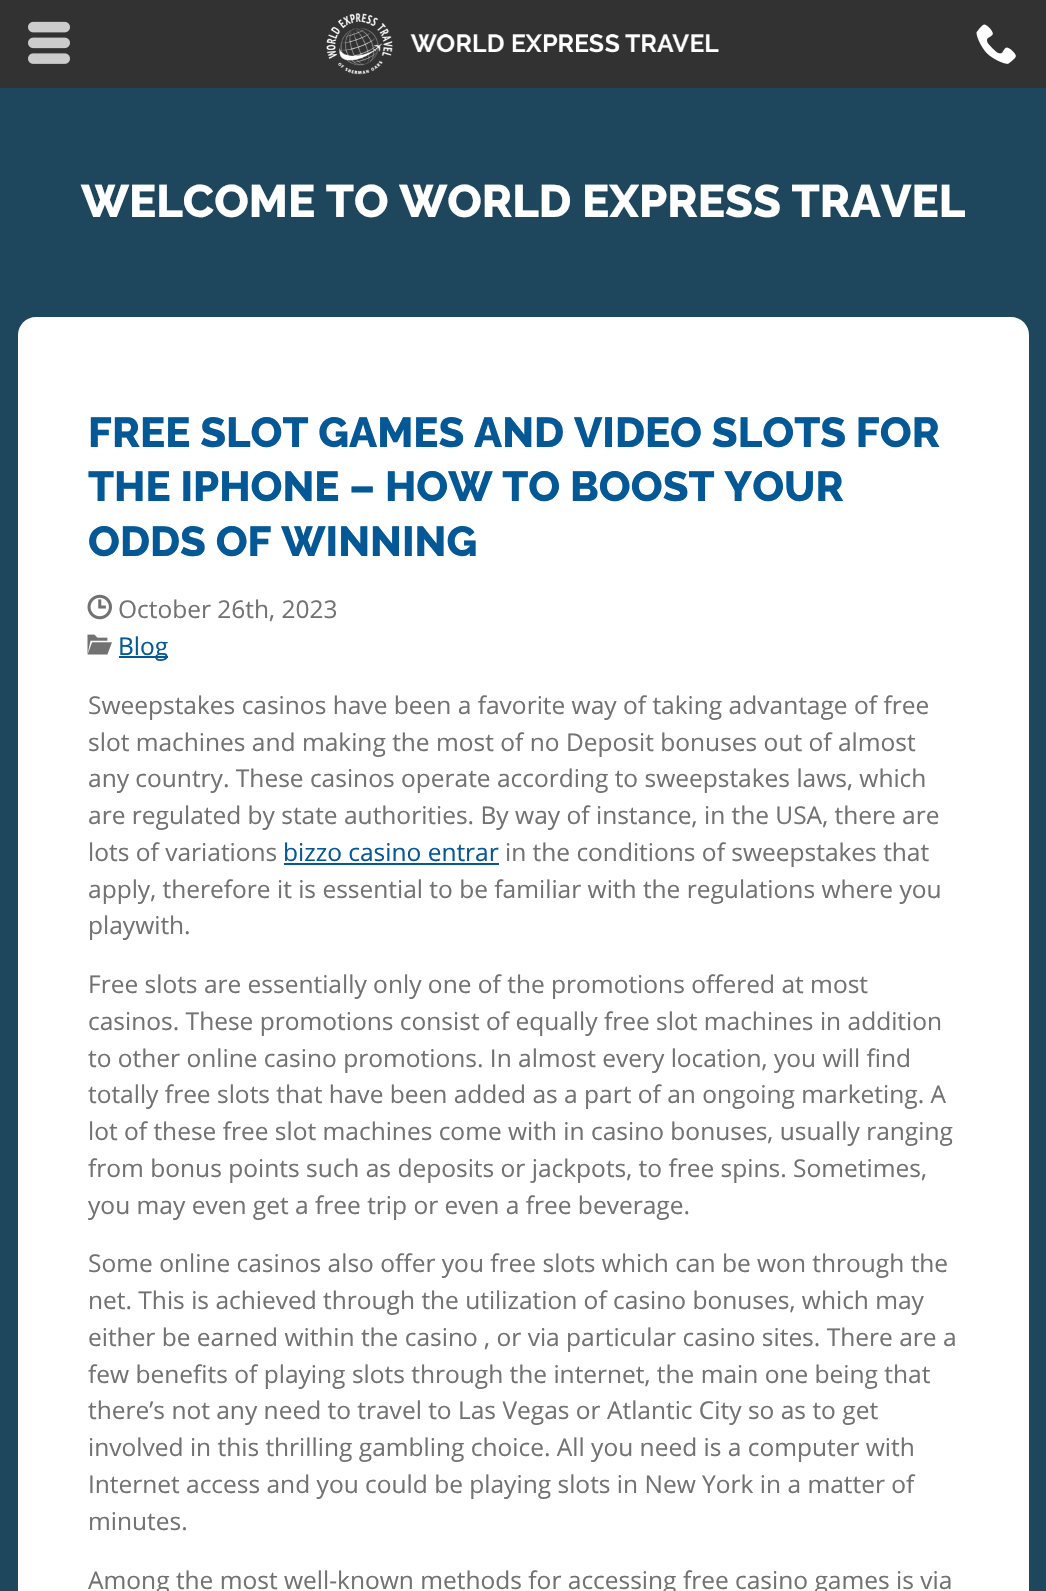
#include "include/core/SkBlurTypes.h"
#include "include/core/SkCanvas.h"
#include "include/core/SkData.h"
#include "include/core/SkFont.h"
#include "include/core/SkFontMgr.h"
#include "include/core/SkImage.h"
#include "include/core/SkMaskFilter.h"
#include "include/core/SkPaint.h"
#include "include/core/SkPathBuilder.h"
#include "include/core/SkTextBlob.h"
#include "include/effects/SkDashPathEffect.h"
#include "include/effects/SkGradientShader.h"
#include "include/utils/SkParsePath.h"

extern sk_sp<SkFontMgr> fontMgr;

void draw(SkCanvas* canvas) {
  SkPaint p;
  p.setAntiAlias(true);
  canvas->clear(SkColorSetRGB(30, 70, 92));
  p.setColor(SkColorSetRGB(50, 50, 50));
  canvas->drawRect(SkRect::MakeLTRB(0, 0, 1046, 88), p);
  canvas->drawImageRect(SkImages::DeferredFromEncodedData(SkData::MakeFromFileName("images/1.png")), SkRect::MakeLTRB(28, 21, 70, 64), SkSamplingOptions());
  canvas->drawImageRect(SkImages::DeferredFromEncodedData(SkData::MakeFromFileName("images/2.png")), SkRect::MakeLTRB(326, 13, 719, 75), SkSamplingOptions());
  canvas->drawImageRect(SkImages::DeferredFromEncodedData(SkData::MakeFromFileName("images/3.png")), SkRect::MakeLTRB(976, 24, 1016, 64), SkSamplingOptions());
  p.setColor(SK_ColorWHITE);
  canvas->drawPath(SkPathBuilder().moveTo(36, 317).lineTo(1011, 317).cubicTo(1021, 317, 1029, 325, 1029, 335).lineTo(1029, 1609).lineTo(18, 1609).lineTo(18, 335).cubicTo(18, 325, 26, 317, 36, 317).close().detach(), p);
  canvas->drawImageRect(SkImages::DeferredFromEncodedData(SkData::MakeFromFileName("images/4.png")), SkRect::MakeLTRB(87, 594, 112, 620), SkSamplingOptions());
  canvas->drawImageRect(SkImages::DeferredFromEncodedData(SkData::MakeFromFileName("images/5.png")), SkRect::MakeLTRB(87, 634, 112, 655), SkSamplingOptions());
  p.setColor(SkColorSetRGB(5, 88, 150));
  canvas->drawRect(SkRect::MakeLTRB(119, 656, 168, 658), p);
  canvas->drawRect(SkRect::MakeLTRB(284, 863, 499, 865), p);
  SkFont font1(fontMgr->matchFamilyStyle("Raleway", SkFontStyle(800, SkFontStyle::kNormal_Width, SkFontStyle::kUpright_Slant)), 45.5f);
  font1.setSubpixel(true);
  p.setColor(SK_ColorWHITE);
  canvas->drawString("WELCOME TO WORLD EXPRESS TRAVEL", 81, 217, font1, p);
  SkFont font2(fontMgr->matchFamilyStyle("Raleway", SkFontStyle(800, SkFontStyle::kNormal_Width, SkFontStyle::kUpright_Slant)), 42);
  font2.setSubpixel(true);
  p.setColor(SkColorSetRGB(5, 88, 150));
  canvas->drawString("FREE SLOT GAMES AND VIDEO SLOTS FOR", 88, 447, font2, p);
  canvas->drawString("THE IPHONE – HOW TO BOOST YOUR", 88, 501, font2, p);
  canvas->drawString("ODDS OF WINNING", 88, 556, font2, p);
  SkFont font3(fontMgr->matchFamilyStyle("Open Sans", SkFontStyle::Normal()), 24.5f);
  font3.setSubpixel(true);
  p.setColor(SkColorSetRGB(114, 114, 114));
  canvas->drawString("October 26th, 2023", 118, 618, font3, p);
  p.setColor(SkColorSetRGB(5, 88, 150));
  canvas->drawString("Blog", 118, 655, font3, p);
  p.setColor(SkColorSetRGB(114, 114, 114));
  canvas->drawString("Sweepstakes casinos have been a favorite way of taking advantage of free", 88, 714, font3, p);
  canvas->drawString("slot machines and making the most of no Deposit bonuses out of almost", 88, 751, font3, p);
  canvas->drawString("any country. These casinos operate according to sweepstakes laws, which", 88, 787, font3, p);
  canvas->drawString("are regulated by state authorities. By way of instance, in the USA, there are", 88, 824, font3, p);
  canvas->drawString("lots of variations", 88, 861, font3, p);
  p.setColor(SkColorSetRGB(5, 88, 150));
  canvas->drawString("bizzo casino entrar", 283, 861, font3, p);
  p.setColor(SkColorSetRGB(114, 114, 114));
  canvas->drawString("in the conditions of sweepstakes that", 505, 861, font3, p);
  canvas->drawString("apply, therefore it is essential to be familiar with the regulations where you", 88, 898, font3, p);
  canvas->drawString("playwith.", 88, 934, font3, p);
  canvas->drawString("Free slots are essentially only one of the promotions offered at most", 88, 993, font3, p);
  canvas->drawString("casinos. These promotions consist of equally free slot machines in addition", 88, 1030, font3, p);
  canvas->drawString("to other online casino promotions. In almost every location, you will find", 88, 1067, font3, p);
  canvas->drawString("totally free slots that have been added as a part of an ongoing marketing. A", 88, 1103, font3, p);
  canvas->drawString("lot of these free slot machines come with in casino bonuses, usually ranging", 88, 1140, font3, p);
  canvas->drawString("from bonus points such as deposits or jackpots, to free spins. Sometimes,", 88, 1177, font3, p);
  canvas->drawString("you may even get a free trip or even a free beverage.", 88, 1214, font3, p);
  canvas->drawString("Some online casinos also offer you free slots which can be won through the", 88, 1272, font3, p);
  canvas->drawString("net. This is achieved through the utilization of casino bonuses, which may", 88, 1309, font3, p);
  canvas->drawString("either be earned within the casino , or via particular casino sites. There are a", 88, 1346, font3, p);
  canvas->drawString("few benefits of playing slots through the internet, the main one being that", 88, 1383, font3, p);
  canvas->drawString("there’s not any need to travel to Las Vegas or Atlantic City so as to get", 88, 1419, font3, p);
  canvas->drawString("involved in this thrilling gambling choice. All you need is a computer with", 88, 1456, font3, p);
  canvas->drawString("Internet access and you could be playing slots in New York in a matter of", 88, 1493, font3, p);
  canvas->drawString("minutes.", 88, 1530, font3, p);
  canvas->drawString("Among the most well-known methods for accessing free casino games is via", 88, 1589, font3, p);
}
